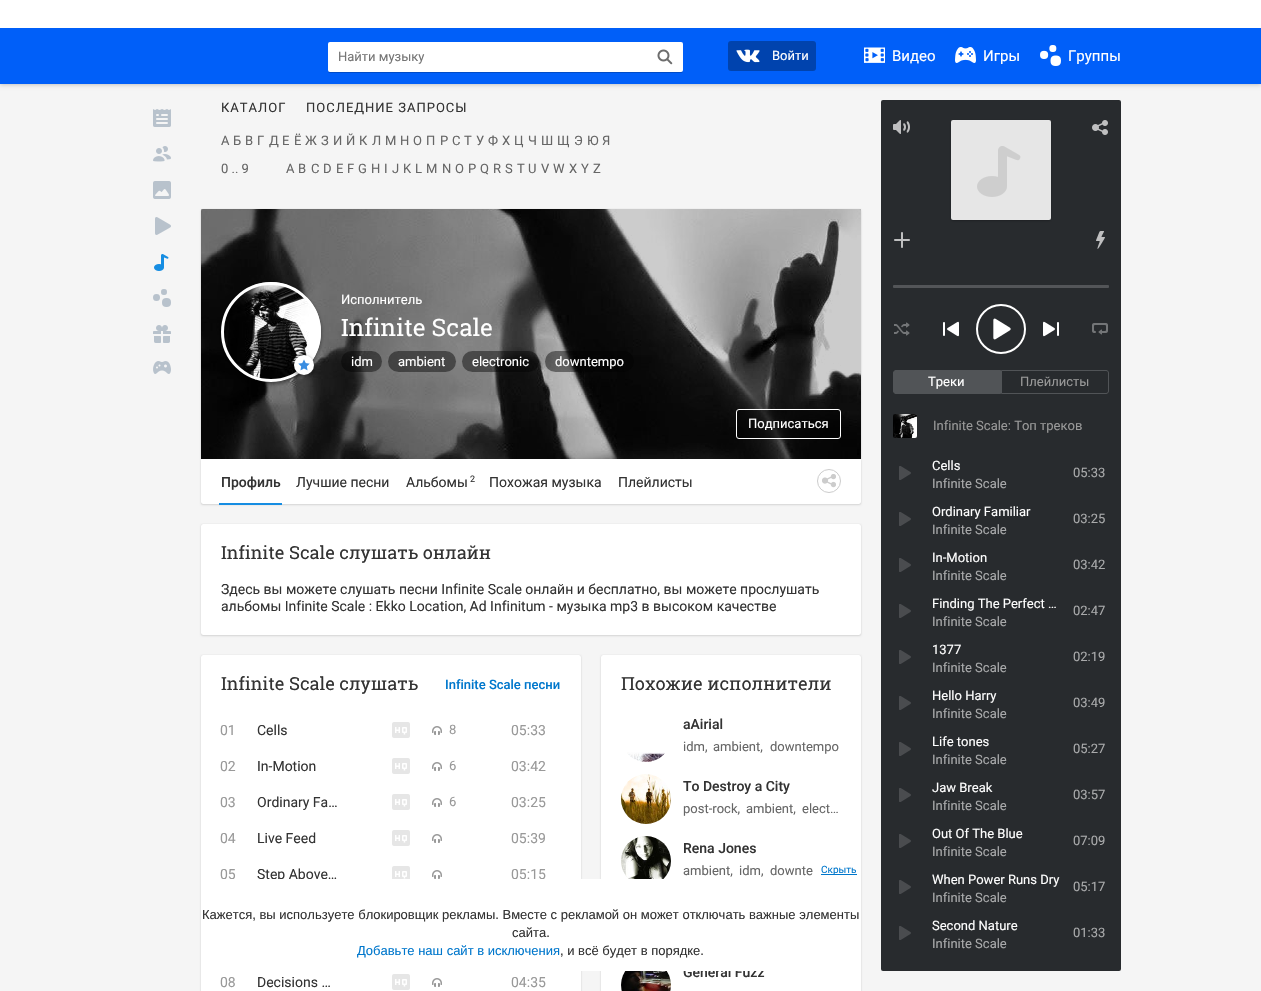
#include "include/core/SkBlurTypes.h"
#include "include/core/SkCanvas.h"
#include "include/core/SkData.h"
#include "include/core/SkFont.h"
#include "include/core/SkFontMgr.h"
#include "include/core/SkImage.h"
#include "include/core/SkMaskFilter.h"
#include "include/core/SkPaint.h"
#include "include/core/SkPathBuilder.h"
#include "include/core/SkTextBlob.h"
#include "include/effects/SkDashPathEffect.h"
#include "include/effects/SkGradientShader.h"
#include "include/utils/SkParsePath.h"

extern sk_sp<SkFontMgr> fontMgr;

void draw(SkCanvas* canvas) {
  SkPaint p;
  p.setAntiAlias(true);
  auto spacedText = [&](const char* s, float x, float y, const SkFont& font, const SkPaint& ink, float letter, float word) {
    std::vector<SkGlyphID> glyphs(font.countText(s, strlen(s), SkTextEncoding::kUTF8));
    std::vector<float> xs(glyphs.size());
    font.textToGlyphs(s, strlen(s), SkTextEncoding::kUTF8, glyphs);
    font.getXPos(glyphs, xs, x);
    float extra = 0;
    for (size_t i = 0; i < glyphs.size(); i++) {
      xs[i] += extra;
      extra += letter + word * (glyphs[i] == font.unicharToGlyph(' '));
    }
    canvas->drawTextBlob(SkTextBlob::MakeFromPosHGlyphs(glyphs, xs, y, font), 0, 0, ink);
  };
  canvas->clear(SkColorSetRGB(245, 245, 245));
  p.setColor(SkColorSetARGB(51, 0, 0, 0));
  p.setMaskFilter(SkMaskFilter::MakeBlur(kNormal_SkBlurStyle, 2));
  canvas->drawRect(SkRect::MakeLTRB(0, 29, 1261, 85), p);
  p.setMaskFilter(nullptr);
  p.setColor(SK_ColorWHITE);
  canvas->drawRect(SkRect::MakeLTRB(0, 0, 1261, 28), p);
  p.setColor(SkColorSetRGB(0, 95, 249));
  canvas->drawRect(SkRect::MakeLTRB(0, 28, 1261, 84), p);
  p.setColor(SkColorSetRGB(0, 76, 199));
  canvas->drawPath(SkPathBuilder().moveTo(328, 70).cubicTo(328, 71, 328, 73, 330, 73).lineTo(681, 73).cubicTo(683, 73, 683, 71, 683, 70).cubicTo(683, 71, 682, 72, 681, 72).lineTo(330, 72).cubicTo(329, 72, 328, 71, 328, 70).close().detach(), p);
  p.setColor(SK_ColorWHITE);
  canvas->drawRoundRect(SkRect::MakeLTRB(328, 42, 683, 72), 2, 2, p);
  canvas->drawImageRect(SkImages::DeferredFromEncodedData(SkData::MakeFromFileName("images/1.png")), SkRect::MakeLTRB(657, 49, 673, 65), SkSamplingOptions());
  p.setColor(SkColorSetRGB(0, 67, 174));
  canvas->drawRoundRect(SkRect::MakeLTRB(728, 41, 816, 71), 3, 3, p);
  canvas->drawImageRect(SkImages::DeferredFromEncodedData(SkData::MakeFromFileName("images/2.png")), SkRect::MakeLTRB(736, 49, 760, 63), SkSamplingOptions());
  canvas->drawImageRect(SkImages::DeferredFromEncodedData(SkData::MakeFromFileName("images/3.png")), SkRect::MakeLTRB(864, 47, 885, 63), SkSamplingOptions());
  canvas->drawImageRect(SkImages::DeferredFromEncodedData(SkData::MakeFromFileName("images/4.png")), SkRect::MakeLTRB(955, 47, 976, 63), SkSamplingOptions());
  canvas->drawImageRect(SkImages::DeferredFromEncodedData(SkData::MakeFromFileName("images/5.png")), SkRect::MakeLTRB(1040, 45, 1061, 66), SkSamplingOptions());
  canvas->drawImageRect(SkImages::DeferredFromEncodedData(SkData::MakeFromFileName("images/6.png")), SkRect::MakeLTRB(153, 109, 171, 127), SkSamplingOptions());
  canvas->drawImageRect(SkImages::DeferredFromEncodedData(SkData::MakeFromFileName("images/7.png")), SkRect::MakeLTRB(153, 146, 171, 162), SkSamplingOptions());
  canvas->drawImageRect(SkImages::DeferredFromEncodedData(SkData::MakeFromFileName("images/8.png")), SkRect::MakeLTRB(153, 181, 171, 199), SkSamplingOptions());
  canvas->drawImageRect(SkImages::DeferredFromEncodedData(SkData::MakeFromFileName("images/9.png")), SkRect::MakeLTRB(155, 217, 171, 235), SkSamplingOptions());
  canvas->drawImageRect(SkImages::DeferredFromEncodedData(SkData::MakeFromFileName("images/10.png")), SkRect::MakeLTRB(154, 254, 169, 271), SkSamplingOptions());
  canvas->drawImageRect(SkImages::DeferredFromEncodedData(SkData::MakeFromFileName("images/11.png")), SkRect::MakeLTRB(153, 289, 171, 307), SkSamplingOptions());
  canvas->drawImageRect(SkImages::DeferredFromEncodedData(SkData::MakeFromFileName("images/12.png")), SkRect::MakeLTRB(153, 325, 171, 343), SkSamplingOptions());
  canvas->drawImageRect(SkImages::DeferredFromEncodedData(SkData::MakeFromFileName("images/13.png")), SkRect::MakeLTRB(153, 361, 171, 374), SkSamplingOptions());
  p.setColor(SkColorSetARGB(31, 0, 0, 0));
  p.setMaskFilter(SkMaskFilter::MakeBlur(kNormal_SkBlurStyle, 1));
  canvas->drawRoundRect(SkRect::MakeLTRB(201, 210, 861, 460), 2, 2, p);
  p.setMaskFilter(nullptr);
  p.setColor(SkColorSetARGB(38, 0, 0, 0));
  p.setMaskFilter(SkMaskFilter::MakeBlur(kNormal_SkBlurStyle, 0.5f));
  canvas->drawRoundRect(SkRect::MakeLTRB(201, 209, 861, 459), 2, 2, p);
  p.setMaskFilter(nullptr);
  canvas->drawImageRect(SkImages::DeferredFromEncodedData(SkData::MakeFromFileName("images/14.png")), SkRect::MakeLTRB(201, 209, 861, 459), SkSamplingOptions());
  p.setColor(SkColorSetARGB(51, 0, 0, 0));
  canvas->drawRect(SkRect::MakeLTRB(201, 209, 861, 459), p);
  p.setColor(SkColorSetARGB(128, 0, 0, 0));
  p.setMaskFilter(SkMaskFilter::MakeBlur(kNormal_SkBlurStyle, 2));
  canvas->drawRoundRect(SkRect::MakeLTRB(221, 284, 321, 384), 50, 50, p);
  p.setMaskFilter(nullptr);
  canvas->drawImageRect(SkImages::DeferredFromEncodedData(SkData::MakeFromFileName("images/15.png")), SkRect::MakeLTRB(221, 282, 321, 382), SkSamplingOptions());
  p.setStyle(SkPaint::kStroke_Style);
  p.setStrokeWidth(3);
  p.setColor(SK_ColorWHITE);
  canvas->drawCircle(271, 332, 48.5f, p);
  p.setStyle(SkPaint::kFill_Style);
  p.setColor(SkColorSetARGB(128, 0, 0, 0));
  p.setMaskFilter(SkMaskFilter::MakeBlur(kNormal_SkBlurStyle, 2));
  canvas->drawRoundRect(SkRect::MakeLTRB(294, 357, 314, 377), 10, 10, p);
  p.setMaskFilter(nullptr);
  p.setColor(SK_ColorWHITE);
  canvas->drawCircle(304, 365, 10, p);
  canvas->drawImageRect(SkImages::DeferredFromEncodedData(SkData::MakeFromFileName("images/16.png")), SkRect::MakeLTRB(298, 359, 310, 371), SkSamplingOptions());
  p.setColor(SkColorSetARGB(112, 0, 0, 0));
  canvas->drawRoundRect(SkRect::MakeLTRB(341, 351, 382, 372), 10.5f, 10.5f, p);
  canvas->drawRoundRect(SkRect::MakeLTRB(388, 351, 456, 372), 10.5f, 10.5f, p);
  canvas->drawRoundRect(SkRect::MakeLTRB(462, 351, 539, 372), 10.5f, 10.5f, p);
  canvas->drawRoundRect(SkRect::MakeLTRB(545, 351, 634, 372), 10.5f, 10.5f, p);
  p.setColor(SkColorSetARGB(128, 0, 0, 0));
  canvas->drawRoundRect(SkRect::MakeLTRB(736.5f, 409.5f, 840.5f, 438.5f), 2.5f, 2.5f, p);
  p.setStyle(SkPaint::kStroke_Style);
  p.setStrokeWidth(1);
  p.setColor(SK_ColorWHITE);
  canvas->drawRoundRect(SkRect::MakeLTRB(736.5f, 409.5f, 840.5f, 438.5f), 2.5f, 2.5f, p);
  p.setStyle(SkPaint::kFill_Style);
  p.setColor(SkColorSetARGB(31, 0, 0, 0));
  p.setMaskFilter(SkMaskFilter::MakeBlur(kNormal_SkBlurStyle, 1));
  canvas->drawRoundRect(SkRect::MakeLTRB(201, 460, 861, 505), 2, 2, p);
  p.setMaskFilter(nullptr);
  p.setColor(SkColorSetARGB(38, 0, 0, 0));
  p.setMaskFilter(SkMaskFilter::MakeBlur(kNormal_SkBlurStyle, 0.5f));
  canvas->drawRoundRect(SkRect::MakeLTRB(201, 459, 861, 504), 2, 2, p);
  p.setMaskFilter(nullptr);
  p.setColor(SK_ColorWHITE);
  canvas->drawPath(SkPathBuilder().moveTo(201, 459).lineTo(861, 459).lineTo(861, 502).cubicTo(861, 503, 860, 504, 859, 504).lineTo(203, 504).cubicTo(202, 504, 201, 503, 201, 502).close().detach(), p);
  p.setColor(SkColorSetRGB(22, 141, 226));
  canvas->drawRect(SkRect::MakeLTRB(219, 503, 282, 505), p);
  p.setStyle(SkPaint::kStroke_Style);
  p.setColor(SkColorSetRGB(204, 204, 204));
  canvas->drawCircle(829, 481, 11.5f, p);
  canvas->drawImageRect(SkImages::DeferredFromEncodedData(SkData::MakeFromFileName("images/17.png")), SkRect::MakeLTRB(822, 474, 836, 488), SkSamplingOptions());
  p.setStyle(SkPaint::kFill_Style);
  p.setColor(SkColorSetARGB(31, 0, 0, 0));
  p.setMaskFilter(SkMaskFilter::MakeBlur(kNormal_SkBlurStyle, 1));
  canvas->drawRoundRect(SkRect::MakeLTRB(201, 525, 861, 636), 2, 2, p);
  p.setMaskFilter(nullptr);
  p.setColor(SkColorSetARGB(38, 0, 0, 0));
  p.setMaskFilter(SkMaskFilter::MakeBlur(kNormal_SkBlurStyle, 0.5f));
  canvas->drawRoundRect(SkRect::MakeLTRB(201, 524, 861, 635), 2, 2, p);
  p.setMaskFilter(nullptr);
  p.setColor(SK_ColorWHITE);
  canvas->drawRoundRect(SkRect::MakeLTRB(201, 524, 861, 635), 2, 2, p);
  p.setColor(SkColorSetARGB(31, 0, 0, 0));
  p.setMaskFilter(SkMaskFilter::MakeBlur(kNormal_SkBlurStyle, 1));
  canvas->drawRoundRect(SkRect::MakeLTRB(201, 656, 581, 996), 2, 2, p);
  p.setMaskFilter(nullptr);
  p.setColor(SkColorSetARGB(38, 0, 0, 0));
  p.setMaskFilter(SkMaskFilter::MakeBlur(kNormal_SkBlurStyle, 0.5f));
  canvas->drawRoundRect(SkRect::MakeLTRB(201, 655, 581, 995), 2, 2, p);
  p.setMaskFilter(nullptr);
  p.setColor(SK_ColorWHITE);
  canvas->drawRoundRect(SkRect::MakeLTRB(201, 655, 581, 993), 2, 2, p);
  canvas->drawImageRect(SkImages::DeferredFromEncodedData(SkData::MakeFromFileName("images/18.png")), SkRect::MakeLTRB(392, 722, 410, 738), SkSamplingOptions());
  canvas->drawImageRect(SkImages::DeferredFromEncodedData(SkData::MakeFromFileName("images/19.png")), SkRect::MakeLTRB(432, 726, 442, 735), SkSamplingOptions());
  canvas->drawImageRect(SkImages::DeferredFromEncodedData(SkData::MakeFromFileName("images/18.png")), SkRect::MakeLTRB(392, 758, 410, 774), SkSamplingOptions());
  canvas->drawImageRect(SkImages::DeferredFromEncodedData(SkData::MakeFromFileName("images/19.png")), SkRect::MakeLTRB(432, 762, 442, 771), SkSamplingOptions());
  canvas->drawImageRect(SkImages::DeferredFromEncodedData(SkData::MakeFromFileName("images/18.png")), SkRect::MakeLTRB(392, 794, 410, 810), SkSamplingOptions());
  canvas->drawImageRect(SkImages::DeferredFromEncodedData(SkData::MakeFromFileName("images/19.png")), SkRect::MakeLTRB(432, 798, 442, 807), SkSamplingOptions());
  canvas->drawImageRect(SkImages::DeferredFromEncodedData(SkData::MakeFromFileName("images/18.png")), SkRect::MakeLTRB(392, 830, 410, 846), SkSamplingOptions());
  canvas->drawImageRect(SkImages::DeferredFromEncodedData(SkData::MakeFromFileName("images/19.png")), SkRect::MakeLTRB(432, 834, 442, 843), SkSamplingOptions());
  canvas->drawImageRect(SkImages::DeferredFromEncodedData(SkData::MakeFromFileName("images/20.png")), SkRect::MakeLTRB(392, 866, 410, 879), SkSamplingOptions());
  canvas->drawImageRect(SkImages::DeferredFromEncodedData(SkData::MakeFromFileName("images/19.png")), SkRect::MakeLTRB(432, 870, 442, 879), SkSamplingOptions());
  canvas->drawImageRect(SkImages::DeferredFromEncodedData(SkData::MakeFromFileName("images/18.png")), SkRect::MakeLTRB(392, 974, 410, 990), SkSamplingOptions());
  canvas->drawImageRect(SkImages::DeferredFromEncodedData(SkData::MakeFromFileName("images/19.png")), SkRect::MakeLTRB(432, 978, 442, 987), SkSamplingOptions());
  p.setColor(SkColorSetARGB(31, 0, 0, 0));
  p.setMaskFilter(SkMaskFilter::MakeBlur(kNormal_SkBlurStyle, 1));
  canvas->drawRoundRect(SkRect::MakeLTRB(601, 656, 861, 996), 2, 2, p);
  p.setMaskFilter(nullptr);
  p.setColor(SkColorSetARGB(38, 0, 0, 0));
  p.setMaskFilter(SkMaskFilter::MakeBlur(kNormal_SkBlurStyle, 0.5f));
  canvas->drawRoundRect(SkRect::MakeLTRB(601, 655, 861, 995), 2, 2, p);
  p.setMaskFilter(nullptr);
  p.setColor(SK_ColorWHITE);
  canvas->drawRoundRect(SkRect::MakeLTRB(601, 655, 861, 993), 2, 2, p);
  canvas->drawImageRect(SkImages::DeferredFromEncodedData(SkData::MakeFromFileName("images/21.png")), SkRect::MakeLTRB(627, 752, 665, 762), SkSamplingOptions());
  canvas->drawImageRect(SkImages::DeferredFromEncodedData(SkData::MakeFromFileName("images/22.png")), SkRect::MakeLTRB(621, 774, 671, 824), SkSamplingOptions());
  canvas->drawImageRect(SkImages::DeferredFromEncodedData(SkData::MakeFromFileName("images/23.png")), SkRect::MakeLTRB(621, 836, 671, 879), SkSamplingOptions());
  canvas->drawImageRect(SkImages::DeferredFromEncodedData(SkData::MakeFromFileName("images/24.png")), SkRect::MakeLTRB(621, 971, 671, 991), SkSamplingOptions());
  p.setColor(SkColorSetRGB(40, 43, 46));
  canvas->drawRoundRect(SkRect::MakeLTRB(881, 100, 1121, 971), 2, 2, p);
  p.setColor(SkColorSetARGB(61, 0, 0, 0));
  p.setMaskFilter(SkMaskFilter::MakeBlur(kNormal_SkBlurStyle, 1));
  canvas->drawRoundRect(SkRect::MakeLTRB(951, 121, 1051, 221), 2, 2, p);
  p.setMaskFilter(nullptr);
  p.setColor(SkColorSetRGB(230, 230, 230));
  canvas->drawRoundRect(SkRect::MakeLTRB(951, 120, 1051, 220), 2, 2, p);
  canvas->drawImageRect(SkImages::DeferredFromEncodedData(SkData::MakeFromFileName("images/25.png")), SkRect::MakeLTRB(977, 146, 1021, 197), SkSamplingOptions());
  canvas->drawImageRect(SkImages::DeferredFromEncodedData(SkData::MakeFromFileName("images/26.png")), SkRect::MakeLTRB(893, 120, 910, 134), SkSamplingOptions());
  canvas->drawImageRect(SkImages::DeferredFromEncodedData(SkData::MakeFromFileName("images/27.png")), SkRect::MakeLTRB(1092, 120, 1108, 135), SkSamplingOptions());
  canvas->drawImageRect(SkImages::DeferredFromEncodedData(SkData::MakeFromFileName("images/28.png")), SkRect::MakeLTRB(894, 232, 910, 248), SkSamplingOptions());
  canvas->drawImageRect(SkImages::DeferredFromEncodedData(SkData::MakeFromFileName("images/29.png")), SkRect::MakeLTRB(1096, 231, 1105, 249), SkSamplingOptions());
  p.setColor(SkColorSetRGB(83, 85, 88));
  canvas->drawRoundRect(SkRect::MakeLTRB(893, 285, 1109, 288), 1, 1, p);
  canvas->drawImageRect(SkImages::DeferredFromEncodedData(SkData::MakeFromFileName("images/30.png")), SkRect::MakeLTRB(894, 322, 910, 336), SkSamplingOptions());
  canvas->drawImageRect(SkImages::DeferredFromEncodedData(SkData::MakeFromFileName("images/31.png")), SkRect::MakeLTRB(943, 321, 959, 337), SkSamplingOptions());
  p.setStyle(SkPaint::kStroke_Style);
  p.setStrokeWidth(2);
  p.setColor(SK_ColorWHITE);
  canvas->drawCircle(1001, 329, 24, p);
  canvas->drawImageRect(SkImages::DeferredFromEncodedData(SkData::MakeFromFileName("images/32.png")), SkRect::MakeLTRB(993, 318, 1011, 340), SkSamplingOptions());
  canvas->drawImageRect(SkImages::DeferredFromEncodedData(SkData::MakeFromFileName("images/33.png")), SkRect::MakeLTRB(1043, 321, 1059, 337), SkSamplingOptions());
  canvas->drawImageRect(SkImages::DeferredFromEncodedData(SkData::MakeFromFileName("images/34.png")), SkRect::MakeLTRB(1092, 323, 1108, 335), SkSamplingOptions());
  p.setStyle(SkPaint::kFill_Style);
  p.setColor(SkColorSetRGB(81, 84, 87));
  canvas->drawPath(SkPathBuilder().moveTo(896, 370.5f).lineTo(1000.5f, 370.5f).lineTo(1000.5f, 393.5f).lineTo(896, 393.5f).cubicTo(894.5f, 393.5f, 893.5f, 392.5f, 893.5f, 391).lineTo(893.5f, 373).cubicTo(893.5f, 371.5f, 894.5f, 370.5f, 896, 370.5f).close().detach(), p);
  p.setStyle(SkPaint::kStroke_Style);
  p.setStrokeWidth(1);
  canvas->drawPath(SkPathBuilder().moveTo(896, 370.5f).lineTo(1000.5f, 370.5f).lineTo(1000.5f, 393.5f).lineTo(896, 393.5f).cubicTo(894.5f, 393.5f, 893.5f, 392.5f, 893.5f, 391).lineTo(893.5f, 373).cubicTo(893.5f, 371.5f, 894.5f, 370.5f, 896, 370.5f).close().detach(), p);
  canvas->drawPath(SkPathBuilder().moveTo(1001.5f, 370.5f).lineTo(1106, 370.5f).cubicTo(1107.5f, 370.5f, 1108.5f, 371.5f, 1108.5f, 373).lineTo(1108.5f, 391).cubicTo(1108.5f, 392.5f, 1107.5f, 393.5f, 1106, 393.5f).lineTo(1001.5f, 393.5f).close().detach(), p);
  canvas->drawImageRect(SkImages::DeferredFromEncodedData(SkData::MakeFromFileName("images/35.png")), SkRect::MakeLTRB(893, 414, 917, 438), SkSamplingOptions());
  canvas->drawImageRect(SkImages::DeferredFromEncodedData(SkData::MakeFromFileName("images/36.png")), SkRect::MakeLTRB(899, 466, 911, 480), SkSamplingOptions());
  canvas->drawImageRect(SkImages::DeferredFromEncodedData(SkData::MakeFromFileName("images/36.png")), SkRect::MakeLTRB(899, 512, 911, 526), SkSamplingOptions());
  canvas->drawImageRect(SkImages::DeferredFromEncodedData(SkData::MakeFromFileName("images/36.png")), SkRect::MakeLTRB(899, 558, 911, 572), SkSamplingOptions());
  canvas->drawImageRect(SkImages::DeferredFromEncodedData(SkData::MakeFromFileName("images/36.png")), SkRect::MakeLTRB(899, 604, 911, 618), SkSamplingOptions());
  canvas->drawImageRect(SkImages::DeferredFromEncodedData(SkData::MakeFromFileName("images/36.png")), SkRect::MakeLTRB(899, 650, 911, 664), SkSamplingOptions());
  canvas->drawImageRect(SkImages::DeferredFromEncodedData(SkData::MakeFromFileName("images/36.png")), SkRect::MakeLTRB(899, 696, 911, 710), SkSamplingOptions());
  canvas->drawImageRect(SkImages::DeferredFromEncodedData(SkData::MakeFromFileName("images/36.png")), SkRect::MakeLTRB(899, 742, 911, 756), SkSamplingOptions());
  canvas->drawImageRect(SkImages::DeferredFromEncodedData(SkData::MakeFromFileName("images/36.png")), SkRect::MakeLTRB(899, 788, 911, 802), SkSamplingOptions());
  canvas->drawImageRect(SkImages::DeferredFromEncodedData(SkData::MakeFromFileName("images/36.png")), SkRect::MakeLTRB(899, 834, 911, 848), SkSamplingOptions());
  canvas->drawImageRect(SkImages::DeferredFromEncodedData(SkData::MakeFromFileName("images/36.png")), SkRect::MakeLTRB(899, 880, 911, 894), SkSamplingOptions());
  canvas->drawImageRect(SkImages::DeferredFromEncodedData(SkData::MakeFromFileName("images/36.png")), SkRect::MakeLTRB(899, 926, 911, 940), SkSamplingOptions());
  p.setStyle(SkPaint::kFill_Style);
  p.setColor(SkColorSetRGB(0, 119, 204));
  canvas->drawRect(SkRect::MakeLTRB(821, 874, 857, 875), p);
  SkFont font1(fontMgr->matchFamilyStyle("Roboto", SkFontStyle::Normal()), 13);
  font1.setSubpixel(true);
  p.setColor(SkColorSetRGB(117, 117, 117));
  canvas->drawString("Найти музыку", 338, 61, font1, p);
  p.setColor(SK_ColorWHITE);
  canvas->drawString("Войти", 772, 60, font1, p);
  SkFont font2(fontMgr->matchFamilyStyle("Roboto", SkFontStyle::Normal()), 15);
  font2.setSubpixel(true);
  canvas->drawString("Видео", 892, 61, font2, p);
  canvas->drawString("Игры", 983, 61, font2, p);
  canvas->drawString("Группы", 1068, 61, font2, p);
  p.setColor(SkColorSetRGB(51, 51, 51));
  spacedText("КАТАЛОГ", 221, 112, font1, p, 1, 0);
  spacedText("ПОСЛЕДНИЕ ЗАПРОСЫ", 306, 112, font1, p, 1, 0);
  p.setColor(SkColorSetRGB(102, 102, 102));
  canvas->drawString("А", 221, 145, font1, p);
  canvas->drawString("Б", 233, 145, font1, p);
  canvas->drawString("В", 245, 145, font1, p);
  canvas->drawString("Г", 257, 145, font1, p);
  canvas->drawString("Д", 269, 145, font1, p);
  canvas->drawString("Е", 282, 145, font1, p);
  canvas->drawString("Ё", 294, 145, font1, p);
  canvas->drawString("Ж", 305, 145, font1, p);
  canvas->drawString("З", 321, 145, font1, p);
  canvas->drawString("И", 333, 145, font1, p);
  canvas->drawString("Й", 346, 145, font1, p);
  canvas->drawString("К", 359, 145, font1, p);
  canvas->drawString("Л", 372, 145, font1, p);
  canvas->drawString("М", 385, 145, font1, p);
  canvas->drawString("Н", 400, 145, font1, p);
  canvas->drawString("О", 413, 145, font1, p);
  canvas->drawString("П", 426, 145, font1, p);
  canvas->drawString("Р", 440, 145, font1, p);
  canvas->drawString("С", 452, 145, font1, p);
  canvas->drawString("Т", 464, 145, font1, p);
  canvas->drawString("У", 476, 145, font1, p);
  canvas->drawString("Ф", 488, 145, font1, p);
  canvas->drawString("Х", 502, 145, font1, p);
  canvas->drawString("Ц", 514, 145, font1, p);
  canvas->drawString("Ч", 528, 145, font1, p);
  canvas->drawString("Ш", 541, 145, font1, p);
  canvas->drawString("Щ", 557, 145, font1, p);
  canvas->drawString("Э", 574, 145, font1, p);
  canvas->drawString("Ю", 587, 145, font1, p);
  canvas->drawString("Я", 602, 145, font1, p);
  canvas->drawString("0 .. 9", 221, 173, font1, p);
  canvas->drawString("A", 286, 173, font1, p);
  canvas->drawString("B", 298, 173, font1, p);
  canvas->drawString("C", 311, 173, font1, p);
  canvas->drawString("D", 323, 173, font1, p);
  canvas->drawString("E", 336, 173, font1, p);
  canvas->drawString("F", 347, 173, font1, p);
  canvas->drawString("G", 358, 173, font1, p);
  canvas->drawString("H", 371, 173, font1, p);
  canvas->drawString("I", 384, 173, font1, p);
  canvas->drawString("J", 392, 173, font1, p);
  canvas->drawString("K", 403, 173, font1, p);
  canvas->drawString("L", 415, 173, font1, p);
  canvas->drawString("M", 426, 173, font1, p);
  canvas->drawString("N", 442, 173, font1, p);
  canvas->drawString("O", 455, 173, font1, p);
  canvas->drawString("P", 468, 173, font1, p);
  canvas->drawString("Q", 480, 173, font1, p);
  canvas->drawString("R", 493, 173, font1, p);
  canvas->drawString("S", 505, 173, font1, p);
  canvas->drawString("T", 517, 173, font1, p);
  canvas->drawString("U", 528, 173, font1, p);
  canvas->drawString("V", 541, 173, font1, p);
  canvas->drawString("W", 553, 173, font1, p);
  canvas->drawString("X", 569, 173, font1, p);
  canvas->drawString("Y", 581, 173, font1, p);
  canvas->drawString("Z", 593, 173, font1, p);
  p.setColor(SK_ColorWHITE);
  canvas->drawString("Исполнитель", 341, 304, font1, p);
  SkFont font3(fontMgr->matchFamilyStyle("Roboto Slab", SkFontStyle::Normal()), 24);
  font3.setSubpixel(true);
  canvas->drawString("Infinite Scale", 341, 336, font3, p);
  canvas->drawString("idm", 351, 366, font1, p);
  canvas->drawString("ambient", 398, 366, font1, p);
  canvas->drawString("electronic", 472, 366, font1, p);
  canvas->drawString("downtempo", 555, 366, font1, p);
  canvas->drawString("Подписаться", 748, 428, font1, p);
  SkFont font4(fontMgr->matchFamilyStyle("Roboto", SkFontStyle(500, SkFontStyle::kNormal_Width, SkFontStyle::kUpright_Slant)), 14);
  font4.setSubpixel(true);
  p.setColor(SkColorSetRGB(51, 51, 51));
  canvas->drawString("Профиль", 221, 487, font4, p);
  SkFont font5(fontMgr->matchFamilyStyle("Roboto", SkFontStyle::Normal()), 14);
  font5.setSubpixel(true);
  canvas->drawString("Лучшие песни", 296, 487, font5, p);
  canvas->drawString("Альбомы", 406, 487, font5, p);
  SkFont font6(fontMgr->matchFamilyStyle("Roboto", SkFontStyle::Normal()), 9);
  font6.setSubpixel(true);
  canvas->drawString("2", 470, 482, font6, p);
  canvas->drawString("Похожая музыка", 489, 487, font5, p);
  canvas->drawString("Плейлисты", 618, 487, font5, p);
  SkFont font7(fontMgr->matchFamilyStyle("Roboto Slab", SkFontStyle::Normal()), 18);
  font7.setSubpixel(true);
  canvas->drawString("Infinite Scale слушать онлайн", 221, 559, font7, p);
  canvas->drawString("Здесь вы можете слушать песни Infinite Scale онлайн и бесплатно, вы можете прослушать", 221, 594, font5, p);
  canvas->drawString("альбомы Infinite Scale : Ekko Location, Ad Infinitum - музыка mp3 в высоком качестве", 221, 611, font5, p);
  canvas->drawString("Infinite Scale слушать", 221, 690, font7, p);
  SkFont font8(fontMgr->matchFamilyStyle("Roboto", SkFontStyle(500, SkFontStyle::kNormal_Width, SkFontStyle::kUpright_Slant)), 13);
  font8.setSubpixel(true);
  p.setColor(SkColorSetRGB(0, 119, 204));
  canvas->drawString("Infinite Scale песни", 445, 689, font8, p);
  p.setColor(SkColorSetRGB(153, 153, 153));
  canvas->drawString("01", 220, 735, font5, p);
  p.setColor(SkColorSetRGB(51, 51, 51));
  canvas->drawString("Cells", 257, 735, font5, p);
  p.setColor(SkColorSetRGB(153, 153, 153));
  canvas->drawString("8", 449, 734, font1, p);
  canvas->drawString("05:33", 511, 735, font5, p);
  canvas->drawString("02", 220, 771, font5, p);
  p.setColor(SkColorSetRGB(51, 51, 51));
  canvas->drawString("In-Motion", 257, 771, font5, p);
  p.setColor(SkColorSetRGB(153, 153, 153));
  canvas->drawString("6", 449, 770, font1, p);
  canvas->drawString("03:42", 511, 771, font5, p);
  canvas->drawString("03", 220, 807, font5, p);
  p.setColor(SkColorSetRGB(51, 51, 51));
  canvas->drawString("Ordinary Fa…", 257, 807, font5, p);
  p.setColor(SkColorSetRGB(153, 153, 153));
  canvas->drawString("6", 449, 806, font1, p);
  canvas->drawString("03:25", 511, 807, font5, p);
  canvas->drawString("04", 220, 843, font5, p);
  p.setColor(SkColorSetRGB(51, 51, 51));
  canvas->drawString("Live Feed", 257, 843, font5, p);
  p.setColor(SkColorSetRGB(153, 153, 153));
  canvas->drawString("05:39", 511, 843, font5, p);
  canvas->drawString("05", 220, 879, font5, p);
  p.setColor(SkColorSetRGB(51, 51, 51));
  canvas->drawString("Step Above…", 257, 879, font5, p);
  p.setColor(SkColorSetRGB(153, 153, 153));
  canvas->drawString("05:15", 511, 879, font5, p);
  canvas->drawString("08", 220, 987, font5, p);
  p.setColor(SkColorSetRGB(51, 51, 51));
  canvas->drawString("Decisions …", 257, 987, font5, p);
  p.setColor(SkColorSetRGB(153, 153, 153));
  canvas->drawString("04:35", 511, 987, font5, p);
  p.setColor(SkColorSetRGB(51, 51, 51));
  canvas->drawString("Похожие исполнители", 621, 690, font7, p);
  canvas->drawString("aAirial", 683, 729, font4, p);
  p.setColor(SkColorSetRGB(102, 102, 102));
  canvas->drawString("idm,", 683, 751, font1, p);
  canvas->drawString("ambient,", 713, 751, font1, p);
  canvas->drawString("downtempo", 770, 751, font1, p);
  p.setColor(SkColorSetRGB(51, 51, 51));
  canvas->drawString("To Destroy a City", 683, 791, font4, p);
  p.setColor(SkColorSetRGB(102, 102, 102));
  canvas->drawString("post-rock,", 683, 813, font1, p);
  canvas->drawString("ambient,", 746, 813, font1, p);
  canvas->drawString("elect…", 802, 813, font1, p);
  p.setColor(SkColorSetRGB(51, 51, 51));
  canvas->drawString("Rena Jones", 683, 853, font4, p);
  p.setColor(SkColorSetRGB(102, 102, 102));
  canvas->drawString("ambient,", 683, 875, font1, p);
  canvas->drawString("idm,", 739, 875, font1, p);
  canvas->drawString("downte", 770, 875, font1, p);
  p.setColor(SkColorSetRGB(51, 51, 51));
  canvas->drawString("General Fuzz", 683, 977, font4, p);
  p.setColor(SK_ColorWHITE);
  canvas->drawString("Треки", 928, 386, font1, p);
  p.setColor(SkColorSetRGB(153, 153, 153));
  canvas->drawString("Плейлисты", 1020, 386, font1, p);
  canvas->drawString("Infinite Scale: Топ треков", 933, 430, font1, p);
  p.setColor(SK_ColorWHITE);
  canvas->drawString("Cells", 932, 470, font1, p);
  p.setColor(SkColorSetRGB(169, 170, 171));
  canvas->drawString("Infinite Scale", 932, 488, font1, p);
  canvas->drawString("05:33", 1073, 477, font1, p);
  p.setColor(SK_ColorWHITE);
  canvas->drawString("Ordinary Familiar", 932, 516, font1, p);
  p.setColor(SkColorSetRGB(169, 170, 171));
  canvas->drawString("Infinite Scale", 932, 534, font1, p);
  canvas->drawString("03:25", 1073, 523, font1, p);
  p.setColor(SK_ColorWHITE);
  canvas->drawString("In-Motion", 932, 562, font1, p);
  p.setColor(SkColorSetRGB(169, 170, 171));
  canvas->drawString("Infinite Scale", 932, 580, font1, p);
  canvas->drawString("03:42", 1073, 569, font1, p);
  p.setColor(SK_ColorWHITE);
  canvas->drawString("Finding The Perfect …", 932, 608, font1, p);
  p.setColor(SkColorSetRGB(169, 170, 171));
  canvas->drawString("Infinite Scale", 932, 626, font1, p);
  canvas->drawString("02:47", 1073, 615, font1, p);
  p.setColor(SK_ColorWHITE);
  canvas->drawString("1377", 932, 654, font1, p);
  p.setColor(SkColorSetRGB(169, 170, 171));
  canvas->drawString("Infinite Scale", 932, 672, font1, p);
  canvas->drawString("02:19", 1073, 661, font1, p);
  p.setColor(SK_ColorWHITE);
  canvas->drawString("Hello Harry", 932, 700, font1, p);
  p.setColor(SkColorSetRGB(169, 170, 171));
  canvas->drawString("Infinite Scale", 932, 718, font1, p);
  canvas->drawString("03:49", 1073, 707, font1, p);
  p.setColor(SK_ColorWHITE);
  canvas->drawString("Life tones", 932, 746, font1, p);
  p.setColor(SkColorSetRGB(169, 170, 171));
  canvas->drawString("Infinite Scale", 932, 764, font1, p);
  canvas->drawString("05:27", 1073, 753, font1, p);
  p.setColor(SK_ColorWHITE);
  canvas->drawString("Jaw Break", 932, 792, font1, p);
  p.setColor(SkColorSetRGB(169, 170, 171));
  canvas->drawString("Infinite Scale", 932, 810, font1, p);
  canvas->drawString("03:57", 1073, 799, font1, p);
  p.setColor(SK_ColorWHITE);
  canvas->drawString("Out Of The Blue", 932, 838, font1, p);
  p.setColor(SkColorSetRGB(169, 170, 171));
  canvas->drawString("Infinite Scale", 932, 856, font1, p);
  canvas->drawString("07:09", 1073, 845, font1, p);
  p.setColor(SK_ColorWHITE);
  canvas->drawString("When Power Runs Dry", 932, 884, font1, p);
  p.setColor(SkColorSetRGB(169, 170, 171));
  canvas->drawString("Infinite Scale", 932, 902, font1, p);
  canvas->drawString("05:17", 1073, 891, font1, p);
  p.setColor(SK_ColorWHITE);
  canvas->drawString("Second Nature", 932, 930, font1, p);
  p.setColor(SkColorSetRGB(169, 170, 171));
  canvas->drawString("Infinite Scale", 932, 948, font1, p);
  canvas->drawString("01:33", 1073, 937, font1, p);
  p.setColor(SK_ColorWHITE);
  canvas->drawRect(SkRect::MakeLTRB(223, 879, 764, 971), p);
  SkFont font9(fontMgr->matchFamilyStyle("Roboto", SkFontStyle::Normal()), 10);
  font9.setSubpixel(true);
  p.setColor(SkColorSetRGB(0, 119, 204));
  canvas->drawString("Скрыть", 821, 873, font9, p);
  SkFont font10(fontMgr->matchFamilyStyle("Liberation Sans", SkFontStyle::Normal()), 13);
  font10.setSubpixel(true);
  p.setColor(SkColorSetRGB(51, 51, 51));
  canvas->drawString("Кажется, вы используете блокировщик рекламы. Вместе с рекламой он может отключать важные элементы", 202, 919, font10, p);
  canvas->drawString("сайта.", 512, 937, font10, p);
  p.setColor(SkColorSetRGB(0, 119, 204));
  canvas->drawString("Добавьте наш сайт в исключения", 357, 955, font10, p);
  p.setColor(SkColorSetRGB(51, 51, 51));
  canvas->drawString(", и всё будет в порядке.", 560, 955, font10, p);
}
